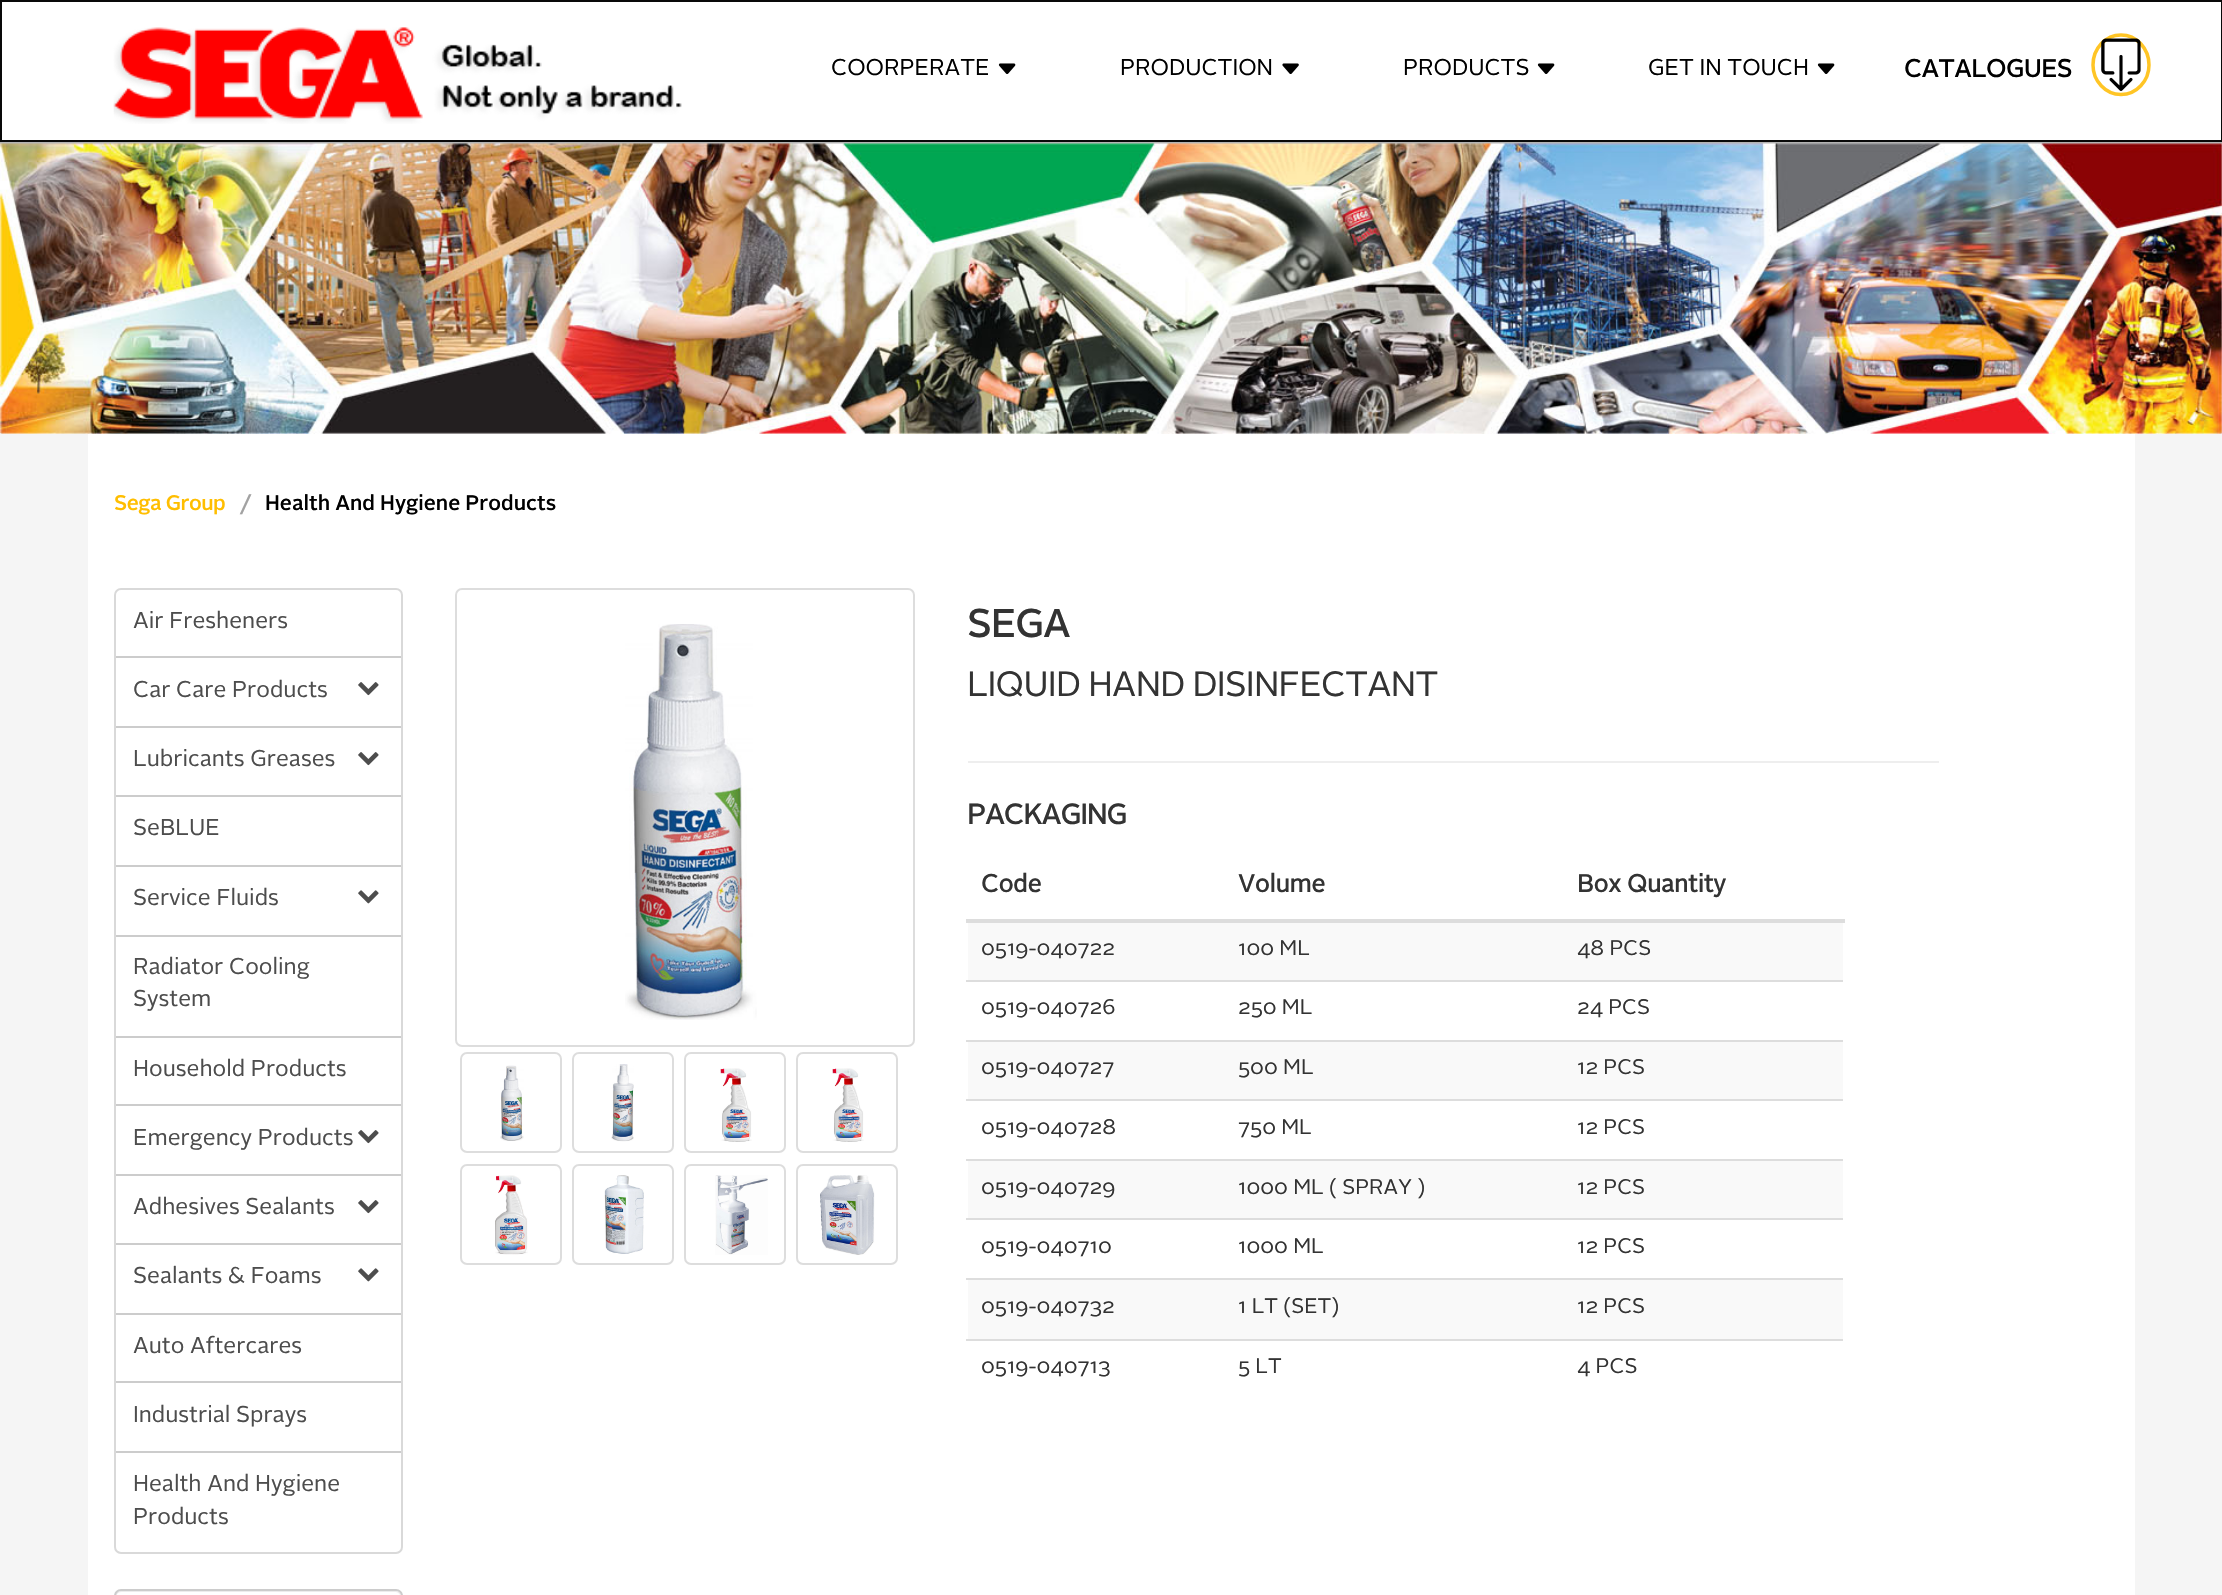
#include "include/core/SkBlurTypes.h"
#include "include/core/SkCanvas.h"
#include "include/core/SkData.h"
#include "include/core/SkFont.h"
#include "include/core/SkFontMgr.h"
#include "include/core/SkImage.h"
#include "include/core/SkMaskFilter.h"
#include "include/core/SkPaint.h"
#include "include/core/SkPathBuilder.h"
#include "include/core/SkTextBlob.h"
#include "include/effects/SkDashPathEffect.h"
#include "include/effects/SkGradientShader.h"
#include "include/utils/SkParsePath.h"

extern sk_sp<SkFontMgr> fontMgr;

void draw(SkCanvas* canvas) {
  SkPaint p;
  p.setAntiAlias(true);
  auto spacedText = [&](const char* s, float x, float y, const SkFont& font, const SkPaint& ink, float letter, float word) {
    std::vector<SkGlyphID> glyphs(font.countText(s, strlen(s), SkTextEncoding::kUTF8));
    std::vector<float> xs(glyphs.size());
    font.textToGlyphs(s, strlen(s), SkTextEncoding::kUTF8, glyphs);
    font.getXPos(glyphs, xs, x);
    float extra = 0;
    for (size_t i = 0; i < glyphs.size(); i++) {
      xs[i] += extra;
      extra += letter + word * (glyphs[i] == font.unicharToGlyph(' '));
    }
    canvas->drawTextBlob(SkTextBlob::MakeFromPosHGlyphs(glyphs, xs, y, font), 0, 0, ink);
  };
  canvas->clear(SkColorSetRGB(245, 245, 245));
  p.setColor(SK_ColorWHITE);
  canvas->drawRect(SkRect::MakeLTRB(1, 1, 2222, 141), p);
  p.setStyle(SkPaint::kStroke_Style);
  p.setStrokeWidth(2);
  p.setColor(SkColorSetRGB(9, 9, 9));
  canvas->drawRect(SkRect::MakeLTRB(1, 1, 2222, 141), p);
  canvas->drawImageRect(SkImages::DeferredFromEncodedData(SkData::MakeFromFileName("images/1.png")), SkRect::MakeLTRB(113, 27, 682, 124), SkSamplingOptions());
  canvas->drawImageRect(SkImages::DeferredFromEncodedData(SkData::MakeFromFileName("images/2.png")), SkRect::MakeLTRB(998, 63, 1016, 74), SkSamplingOptions());
  canvas->drawImageRect(SkImages::DeferredFromEncodedData(SkData::MakeFromFileName("images/3.png")), SkRect::MakeLTRB(1282, 63, 1299, 74), SkSamplingOptions());
  canvas->drawImageRect(SkImages::DeferredFromEncodedData(SkData::MakeFromFileName("images/2.png")), SkRect::MakeLTRB(1537, 63, 1555, 74), SkSamplingOptions());
  canvas->drawImageRect(SkImages::DeferredFromEncodedData(SkData::MakeFromFileName("images/2.png")), SkRect::MakeLTRB(1817, 63, 1835, 74), SkSamplingOptions());
  p.setStrokeWidth(3.5f);
  p.setColor(SkColorSetRGB(255, 197, 37));
  canvas->drawPath(SkPathBuilder().moveTo(2121, 35).cubicTo(2136.5f, 35, 2149, 48.5f, 2149, 65).cubicTo(2149, 81, 2136.5f, 94.5f, 2121, 94.5f).cubicTo(2105.5f, 94.5f, 2093, 81, 2093, 65).cubicTo(2093, 48.5f, 2105.5f, 35, 2121, 35).close().detach(), p);
  canvas->drawImageRect(SkImages::DeferredFromEncodedData(SkData::MakeFromFileName("images/4.png")), SkRect::MakeLTRB(2101, 38, 2141, 91), SkSamplingOptions());
  p.setStyle(SkPaint::kFill_Style);
  p.setColor(SkColorSetRGB(180, 180, 180));
  canvas->drawRect(SkRect::MakeLTRB(0, 142, 2222, 144), p);
  canvas->drawImageRect(SkImages::DeferredFromEncodedData(SkData::MakeFromFileName("images/5.png")), SkRect::MakeLTRB(0, 143, 2222, 434), SkSamplingOptions());
  p.setColor(SK_ColorWHITE);
  canvas->drawRect(SkRect::MakeLTRB(88, 434, 2135, 1595), p);
  p.setStyle(SkPaint::kStroke_Style);
  p.setStrokeWidth(2);
  p.setColor(SkColorSetRGB(217, 217, 217));
  canvas->drawRoundRect(SkRect::MakeLTRB(115, 589, 402, 1553), 6, 6, p);
  p.setStyle(SkPaint::kFill_Style);
  p.setColor(SkColorSetRGB(204, 204, 204));
  canvas->drawRect(SkRect::MakeLTRB(116, 656, 401, 658), p);
  canvas->drawRect(SkRect::MakeLTRB(116, 726, 401, 728), p);
  canvas->drawImageRect(SkImages::DeferredFromEncodedData(SkData::MakeFromFileName("images/6.png")), SkRect::MakeLTRB(358, 682, 379, 696), SkSamplingOptions());
  canvas->drawRect(SkRect::MakeLTRB(116, 795, 401, 797), p);
  canvas->drawImageRect(SkImages::DeferredFromEncodedData(SkData::MakeFromFileName("images/6.png")), SkRect::MakeLTRB(358, 752, 379, 766), SkSamplingOptions());
  canvas->drawRect(SkRect::MakeLTRB(116, 865, 401, 867), p);
  canvas->drawRect(SkRect::MakeLTRB(116, 935, 401, 937), p);
  canvas->drawImageRect(SkImages::DeferredFromEncodedData(SkData::MakeFromFileName("images/7.png")), SkRect::MakeLTRB(358, 890, 379, 904), SkSamplingOptions());
  canvas->drawRect(SkRect::MakeLTRB(116, 1036, 401, 1038), p);
  canvas->drawRect(SkRect::MakeLTRB(116, 1104, 401, 1106), p);
  canvas->drawRect(SkRect::MakeLTRB(116, 1174, 401, 1176), p);
  canvas->drawImageRect(SkImages::DeferredFromEncodedData(SkData::MakeFromFileName("images/6.png")), SkRect::MakeLTRB(358, 1130, 379, 1144), SkSamplingOptions());
  canvas->drawRect(SkRect::MakeLTRB(116, 1243, 401, 1245), p);
  canvas->drawImageRect(SkImages::DeferredFromEncodedData(SkData::MakeFromFileName("images/6.png")), SkRect::MakeLTRB(358, 1200, 379, 1214), SkSamplingOptions());
  canvas->drawRect(SkRect::MakeLTRB(116, 1313, 401, 1315), p);
  canvas->drawImageRect(SkImages::DeferredFromEncodedData(SkData::MakeFromFileName("images/7.png")), SkRect::MakeLTRB(358, 1268, 379, 1282), SkSamplingOptions());
  canvas->drawRect(SkRect::MakeLTRB(116, 1381, 401, 1383), p);
  canvas->drawRect(SkRect::MakeLTRB(116, 1451, 401, 1453), p);
  p.setColor(SkColorSetRGB(236, 236, 236));
  canvas->drawPath(SkPathBuilder().moveTo(121, 1592).lineTo(396, 1592).cubicTo(398, 1592, 401, 1595, 401, 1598).cubicTo(401, 1595, 400, 1591, 396, 1591).lineTo(120, 1591).cubicTo(116, 1592, 116, 1595, 116, 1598).cubicTo(116, 1595, 118, 1592, 121, 1592).close().detach(), p);
  p.setStyle(SkPaint::kStroke_Style);
  p.setColor(SkColorSetRGB(204, 204, 204));
  canvas->drawRoundRect(SkRect::MakeLTRB(115, 1590, 402, 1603), 6, 6, p);
  p.setColor(SkColorSetRGB(221, 221, 221));
  canvas->drawRoundRect(SkRect::MakeLTRB(456, 589, 914, 1046), 6, 6, p);
  canvas->drawImageRect(SkImages::DeferredFromEncodedData(SkData::MakeFromFileName("images/8.png")), SkRect::MakeLTRB(625, 624, 757, 1020), SkSamplingOptions());
  canvas->drawRoundRect(SkRect::MakeLTRB(461, 1053, 561, 1152), 6, 6, p);
  canvas->drawImageRect(SkImages::DeferredFromEncodedData(SkData::MakeFromFileName("images/9.png")), SkRect::MakeLTRB(500, 1065, 524, 1141), SkSamplingOptions());
  canvas->drawRoundRect(SkRect::MakeLTRB(573, 1053, 673, 1152), 6, 6, p);
  canvas->drawImageRect(SkImages::DeferredFromEncodedData(SkData::MakeFromFileName("images/10.png")), SkRect::MakeLTRB(611, 1064, 634, 1142), SkSamplingOptions());
  canvas->drawRoundRect(SkRect::MakeLTRB(685, 1053, 785, 1152), 6, 6, p);
  canvas->drawImageRect(SkImages::DeferredFromEncodedData(SkData::MakeFromFileName("images/11.png")), SkRect::MakeLTRB(720, 1068, 752, 1142), SkSamplingOptions());
  canvas->drawRoundRect(SkRect::MakeLTRB(797, 1053, 897, 1152), 6, 6, p);
  canvas->drawImageRect(SkImages::DeferredFromEncodedData(SkData::MakeFromFileName("images/12.png")), SkRect::MakeLTRB(832, 1068, 864, 1142), SkSamplingOptions());
  canvas->drawRoundRect(SkRect::MakeLTRB(461, 1165, 561, 1264), 6, 6, p);
  canvas->drawImageRect(SkImages::DeferredFromEncodedData(SkData::MakeFromFileName("images/13.png")), SkRect::MakeLTRB(495, 1175, 528, 1255), SkSamplingOptions());
  canvas->drawRoundRect(SkRect::MakeLTRB(573, 1165, 673, 1264), 6, 6, p);
  canvas->drawImageRect(SkImages::DeferredFromEncodedData(SkData::MakeFromFileName("images/14.png")), SkRect::MakeLTRB(604, 1175, 644, 1254), SkSamplingOptions());
  canvas->drawRoundRect(SkRect::MakeLTRB(685, 1165, 785, 1264), 6, 6, p);
  canvas->drawImageRect(SkImages::DeferredFromEncodedData(SkData::MakeFromFileName("images/15.png")), SkRect::MakeLTRB(715, 1175, 768, 1255), SkSamplingOptions());
  canvas->drawRoundRect(SkRect::MakeLTRB(797, 1165, 897, 1264), 6, 6, p);
  canvas->drawImageRect(SkImages::DeferredFromEncodedData(SkData::MakeFromFileName("images/16.png")), SkRect::MakeLTRB(820, 1175, 875, 1255), SkSamplingOptions());
  p.setStyle(SkPaint::kFill_Style);
  p.setColor(SkColorSetRGB(238, 238, 238));
  canvas->drawRect(SkRect::MakeLTRB(968, 761, 1939, 763), p);
  p.setColor(SkColorSetRGB(221, 221, 221));
  canvas->drawRect(SkRect::MakeLTRB(966, 919, 1845, 923), p);
  p.setColor(SkColorSetRGB(249, 249, 249));
  canvas->drawRect(SkRect::MakeLTRB(968, 923, 1843, 980), p);
  p.setColor(SkColorSetRGB(221, 221, 221));
  canvas->drawRect(SkRect::MakeLTRB(966, 980, 1843, 982), p);
  p.setColor(SkColorSetRGB(249, 249, 249));
  canvas->drawRect(SkRect::MakeLTRB(968, 1042, 1843, 1099), p);
  p.setColor(SkColorSetRGB(221, 221, 221));
  canvas->drawRect(SkRect::MakeLTRB(966, 1040, 1843, 1042), p);
  canvas->drawRect(SkRect::MakeLTRB(966, 1099, 1843, 1101), p);
  p.setColor(SkColorSetRGB(249, 249, 249));
  canvas->drawRect(SkRect::MakeLTRB(968, 1161, 1843, 1218), p);
  p.setColor(SkColorSetRGB(221, 221, 221));
  canvas->drawRect(SkRect::MakeLTRB(966, 1159, 1843, 1161), p);
  canvas->drawRect(SkRect::MakeLTRB(966, 1218, 1843, 1220), p);
  p.setColor(SkColorSetRGB(249, 249, 249));
  canvas->drawRect(SkRect::MakeLTRB(968, 1280, 1843, 1339), p);
  p.setColor(SkColorSetRGB(221, 221, 221));
  canvas->drawRect(SkRect::MakeLTRB(966, 1278, 1843, 1280), p);
  canvas->drawRect(SkRect::MakeLTRB(966, 1339, 1843, 1341), p);
  SkFont font1(fontMgr->matchFamilyStyle("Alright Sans", SkFontStyle::Normal()), 22.75f);
  font1.setSubpixel(true);
  p.setColor(SK_ColorBLACK);
  canvas->drawString("COORPERATE", 831, 75, font1, p);
  canvas->drawString("PRODUCTION", 1120, 75, font1, p);
  canvas->drawString("PRODUCTS", 1403, 75, font1, p);
  canvas->drawString("GET IN TOUCH", 1648, 75, font1, p);
  SkFont font2(fontMgr->matchFamilyStyle("Alright Sans", SkFontStyle::Bold()), 24.5f);
  font2.setSubpixel(true);
  canvas->drawString("CATALOGUES", 1904, 77, font2, p);
  SkFont font3(fontMgr->matchFamilyStyle("Alright Sans", SkFontStyle(500, SkFontStyle::kNormal_Width, SkFontStyle::kUpright_Slant)), 21);
  font3.setSubpixel(true);
  p.setColor(SkColorSetRGB(255, 190, 0));
  spacedText("Sega Group", 114, 510, font3, p, -0.5f, 0);
  p.setColor(SkColorSetRGB(162, 162, 162));
  canvas->drawString("/", 240, 510, font3, p);
  p.setColor(SK_ColorBLACK);
  canvas->drawString("Health And Hygiene Products", 265, 510, font3, p);
  p.setColor(SkColorSetRGB(77, 77, 77));
  canvas->drawString("Air Fresheners", 133, 628, font1, p);
  canvas->drawString("Car Care Products", 133, 697, font1, p);
  canvas->drawString("Lubricants Greases", 133, 766, font1, p);
  canvas->drawString("SeBLUE", 133, 835, font1, p);
  canvas->drawString("Service Fluids", 133, 905, font1, p);
  canvas->drawString("Radiator Cooling", 133, 974, font1, p);
  canvas->drawString("System", 133, 1006, font1, p);
  canvas->drawString("Household Products", 133, 1076, font1, p);
  canvas->drawString("Emergency Products", 133, 1145, font1, p);
  canvas->drawString("Adhesives Sealants", 133, 1214, font1, p);
  canvas->drawString("Sealants & Foams", 133, 1283, font1, p);
  canvas->drawString("Auto Aftercares", 133, 1353, font1, p);
  canvas->drawString("Industrial Sprays", 133, 1422, font1, p);
  canvas->drawString("Health And Hygiene", 133, 1491, font1, p);
  canvas->drawString("Products", 133, 1524, font1, p);
  SkFont font4(fontMgr->matchFamilyStyle("Alright Sans", SkFontStyle::Bold()), 38.5f);
  font4.setSubpixel(true);
  p.setColor(SkColorSetRGB(51, 51, 51));
  canvas->drawString("SEGA", 967, 637, font4, p);
  SkFont font5(fontMgr->matchFamilyStyle("Alright Sans", SkFontStyle::Normal()), 35);
  font5.setSubpixel(true);
  spacedText("LIQUID HAND DISINFECTANT", 967, 696, font5, p, -0.7f, 0);
  SkFont font6(fontMgr->matchFamilyStyle("Alright Sans", SkFontStyle::Bold()), 28);
  font6.setSubpixel(true);
  spacedText("PACKAGING", 967, 824, font6, p, -0.5f, 0);
  canvas->drawString("Code", 981, 892, font2, p);
  canvas->drawString("Volume", 1238, 892, font2, p);
  canvas->drawString("Box Quantity", 1577, 892, font2, p);
  SkFont font7(fontMgr->matchFamilyStyle("Alright Sans", SkFontStyle::Normal()), 21);
  font7.setSubpixel(true);
  canvas->drawString("0519-040722", 981, 955, font7, p);
  canvas->drawString("100 ML", 1238, 955, font7, p);
  canvas->drawString("48 PCS", 1577, 955, font7, p);
  canvas->drawString("0519-040726", 981, 1014, font7, p);
  canvas->drawString("250 ML", 1238, 1014, font7, p);
  canvas->drawString("24 PCS", 1577, 1014, font7, p);
  canvas->drawString("0519-040727", 981, 1074, font7, p);
  canvas->drawString("500 ML", 1238, 1074, font7, p);
  canvas->drawString("12 PCS", 1577, 1074, font7, p);
  canvas->drawString("0519-040728", 981, 1134, font7, p);
  canvas->drawString("750 ML", 1238, 1134, font7, p);
  canvas->drawString("12 PCS", 1577, 1134, font7, p);
  canvas->drawString("0519-040729", 981, 1194, font7, p);
  canvas->drawString("1000 ML ( SPRAY )", 1238, 1194, font7, p);
  canvas->drawString("12 PCS", 1577, 1194, font7, p);
  canvas->drawString("0519-040710", 981, 1253, font7, p);
  canvas->drawString("1000 ML", 1238, 1253, font7, p);
  canvas->drawString("12 PCS", 1577, 1253, font7, p);
  canvas->drawString("0519-040732", 981, 1313, font7, p);
  canvas->drawString("1 LT (SET)", 1238, 1313, font7, p);
  canvas->drawString("12 PCS", 1577, 1313, font7, p);
  canvas->drawString("0519-040713", 981, 1373, font7, p);
  canvas->drawString("5 LT", 1238, 1373, font7, p);
  canvas->drawString("4 PCS", 1577, 1373, font7, p);
}
